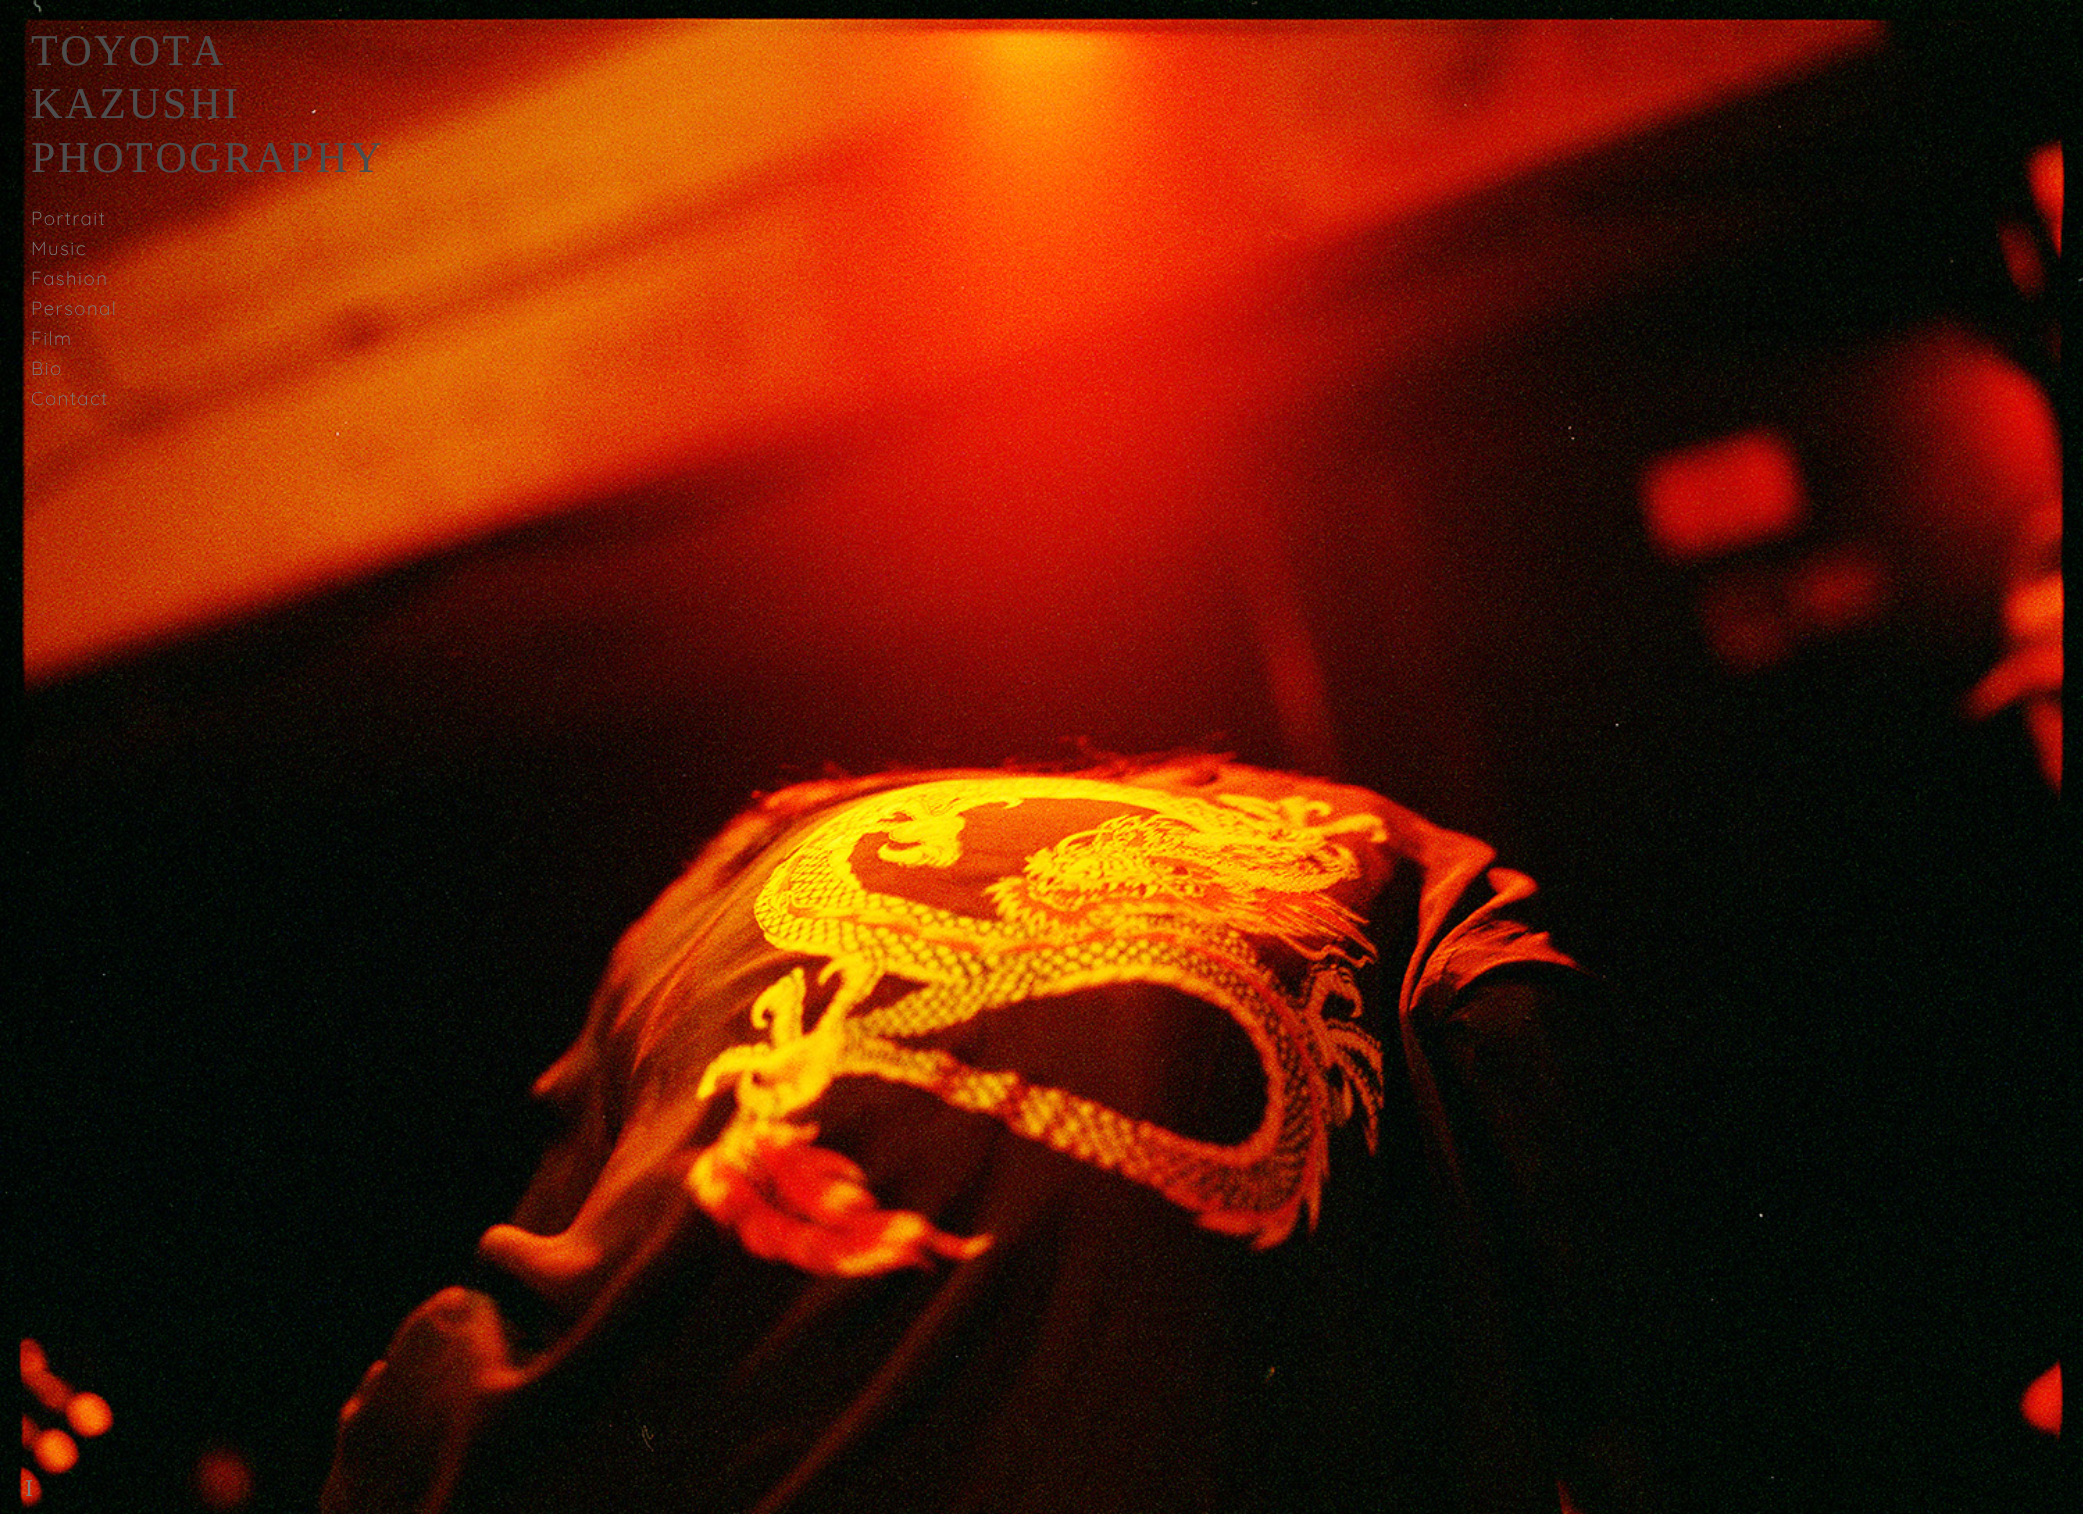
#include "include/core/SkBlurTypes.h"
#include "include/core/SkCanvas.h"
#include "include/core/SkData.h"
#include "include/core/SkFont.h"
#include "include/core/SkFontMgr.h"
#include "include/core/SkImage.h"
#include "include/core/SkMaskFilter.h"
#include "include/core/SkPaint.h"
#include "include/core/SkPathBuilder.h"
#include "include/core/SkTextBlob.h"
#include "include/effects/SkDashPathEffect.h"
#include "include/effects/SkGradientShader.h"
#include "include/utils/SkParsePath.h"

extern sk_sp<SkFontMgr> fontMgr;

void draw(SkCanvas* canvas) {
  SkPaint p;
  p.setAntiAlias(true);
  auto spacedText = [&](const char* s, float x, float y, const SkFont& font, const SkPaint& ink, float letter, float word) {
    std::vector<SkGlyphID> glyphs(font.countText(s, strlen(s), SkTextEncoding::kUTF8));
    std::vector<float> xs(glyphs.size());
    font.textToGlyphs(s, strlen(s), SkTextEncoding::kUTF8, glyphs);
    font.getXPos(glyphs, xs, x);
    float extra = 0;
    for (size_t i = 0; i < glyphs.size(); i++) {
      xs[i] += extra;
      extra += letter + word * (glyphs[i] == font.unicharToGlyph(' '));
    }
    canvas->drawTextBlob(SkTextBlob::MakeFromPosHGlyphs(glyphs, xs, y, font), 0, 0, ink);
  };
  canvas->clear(SK_ColorWHITE);
  canvas->drawImageRect(SkImages::DeferredFromEncodedData(SkData::MakeFromFileName("images/1.png")), SkRect::MakeLTRB(0, 0, 2083, 1514), SkSamplingOptions());
  SkFont font1(fontMgr->matchFamilyStyle("Liberation Serif", SkFontStyle::Normal()), 43.75f);
  font1.setSubpixel(true);
  p.setColor(SkColorSetRGB(77, 77, 77));
  spacedText("TOYOTA", 31, 65, font1, p, 2.5f, 0);
  spacedText("KAZUSHI", 31, 118, font1, p, 2.5f, 0);
  spacedText("PHOTOGRAPHY", 31, 172, font1, p, 2.5f, 0);
  SkFont font2(fontMgr->matchFamilyStyle("Quicksand", SkFontStyle(300, SkFontStyle::kNormal_Width, SkFontStyle::kUpright_Slant)), 18.75f);
  font2.setSubpixel(true);
  p.setColor(SkColorSetRGB(125, 125, 125));
  spacedText("Portrait", 31, 225, font2, p, 1.5f, 0);
  spacedText("Music", 31, 255, font2, p, 1.5f, 0);
  spacedText("Fashion", 31, 285, font2, p, 1.5f, 0);
  spacedText("Personal", 31, 315, font2, p, 1.5f, 0);
  spacedText("Film", 31, 345, font2, p, 1.5f, 0);
  spacedText("Bio", 31, 375, font2, p, 1.5f, 0);
  spacedText("Contact", 31, 405, font2, p, 1.5f, 0);
  SkFont font3(fontMgr->matchFamilyStyle("Liberation Serif", SkFontStyle::Normal()), 24);
  font3.setSubpixel(true);
  canvas->drawString("I", 25, 1496, font3, p);
}
